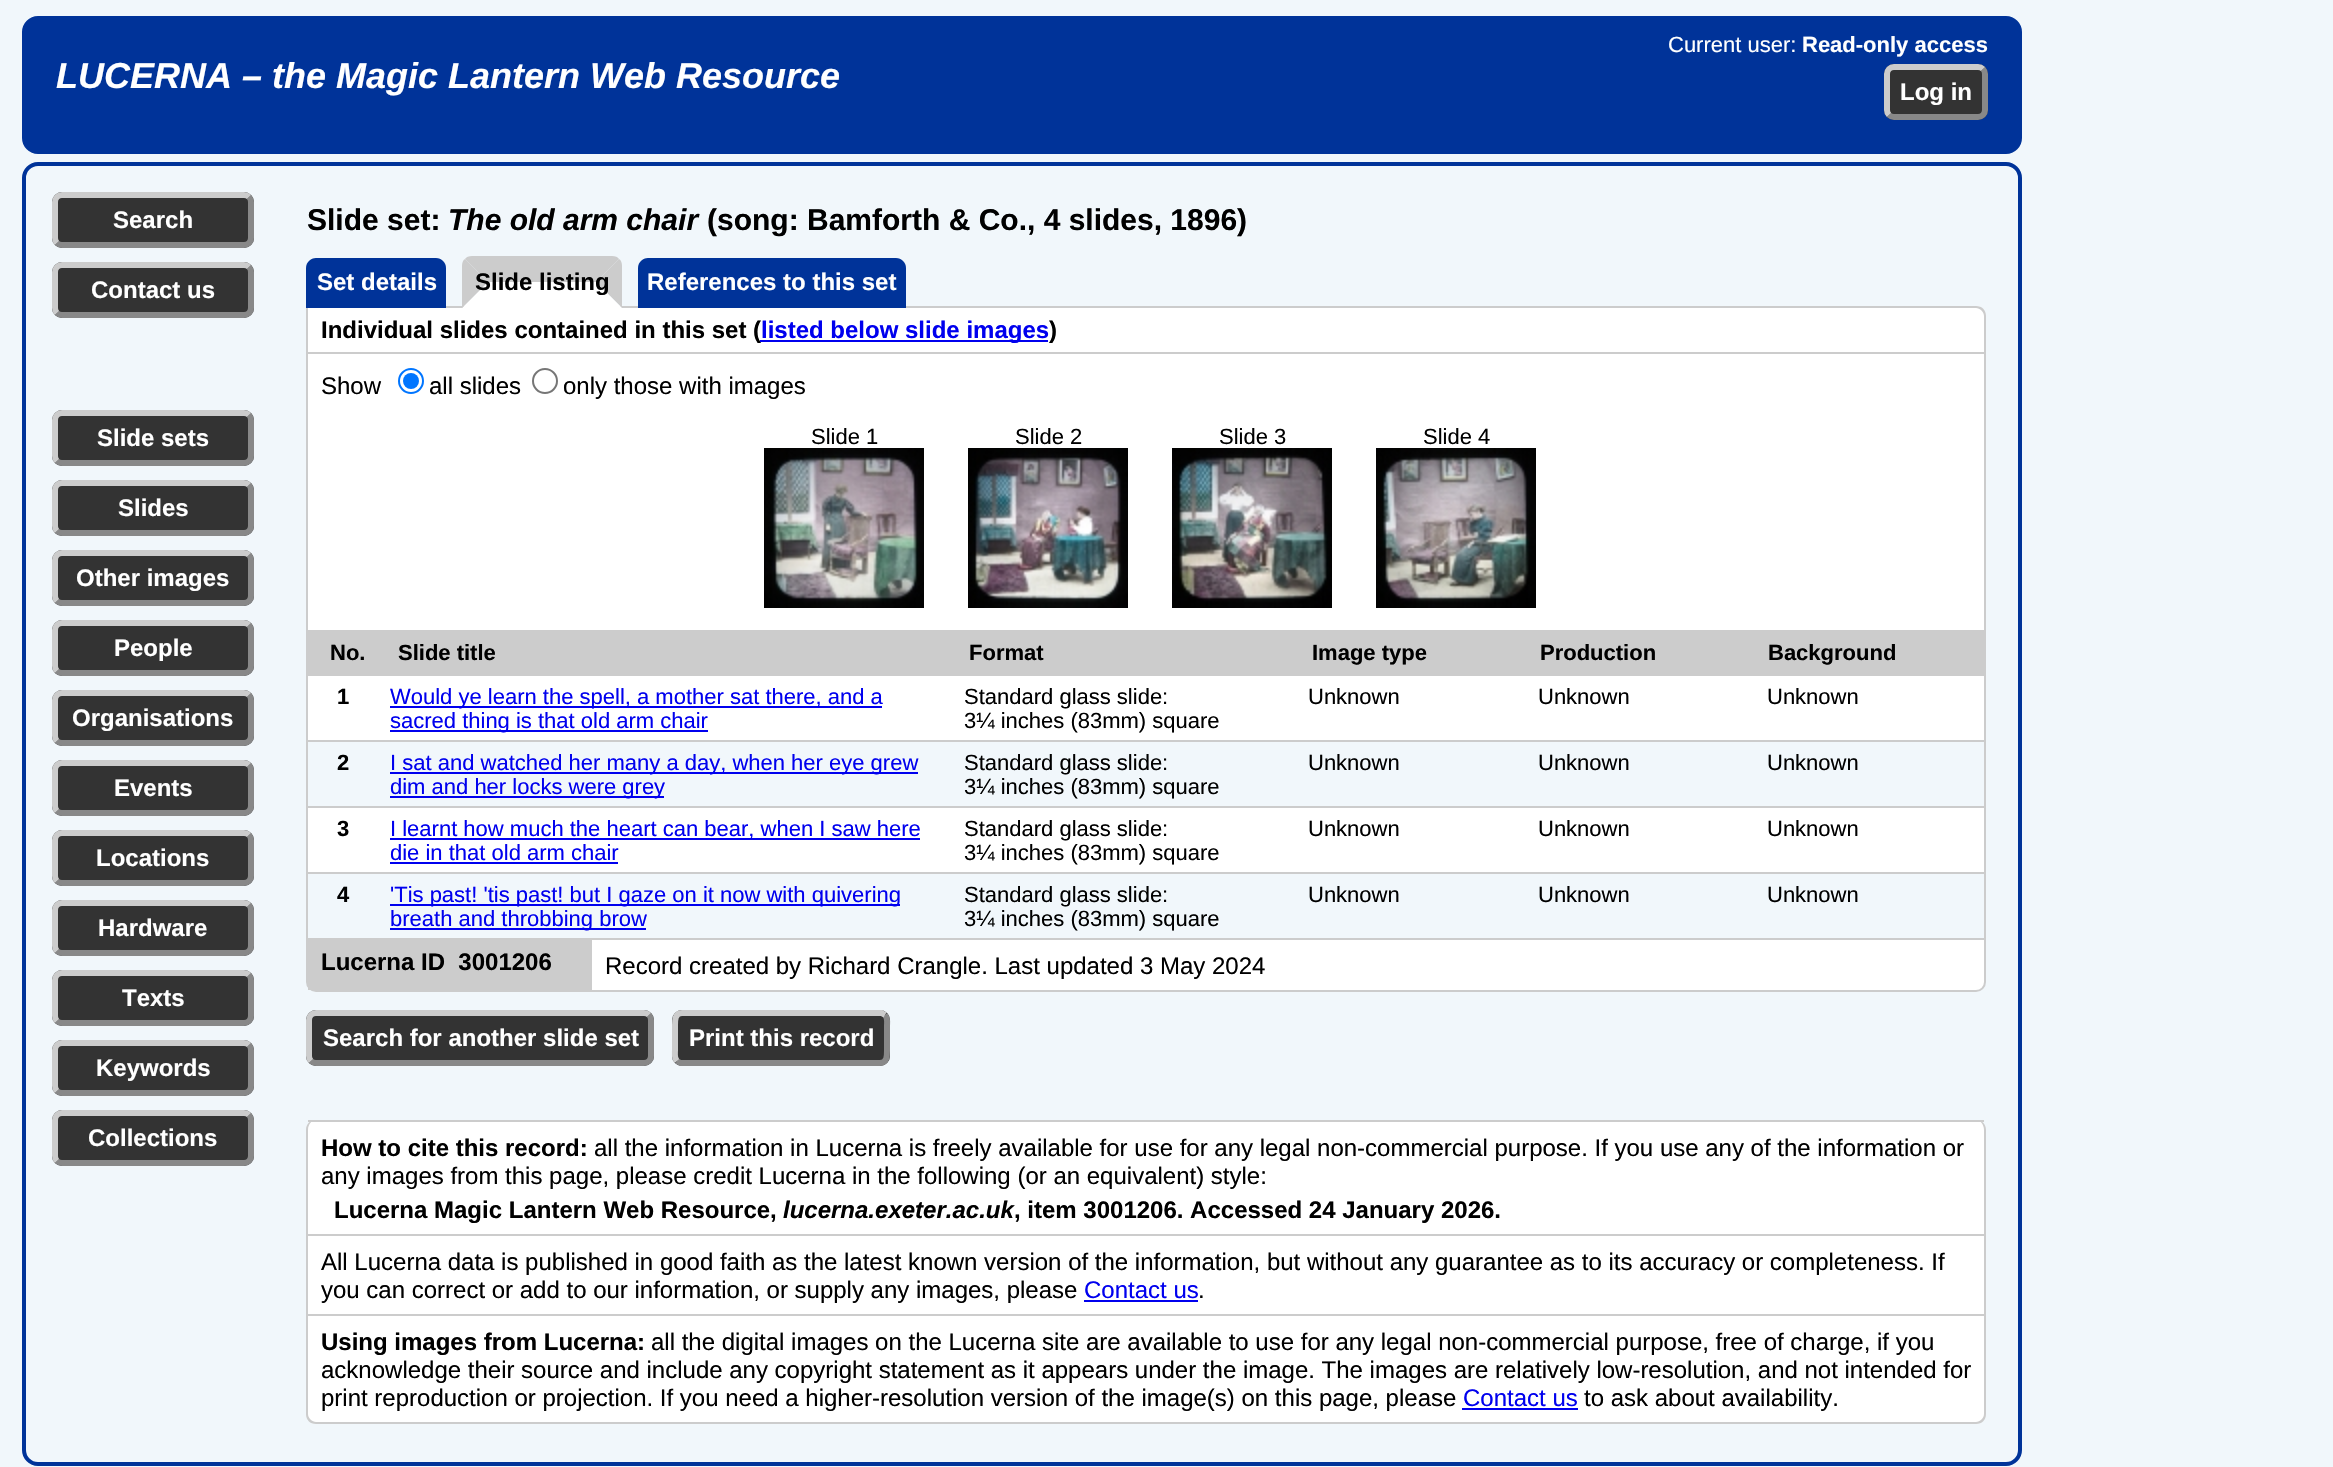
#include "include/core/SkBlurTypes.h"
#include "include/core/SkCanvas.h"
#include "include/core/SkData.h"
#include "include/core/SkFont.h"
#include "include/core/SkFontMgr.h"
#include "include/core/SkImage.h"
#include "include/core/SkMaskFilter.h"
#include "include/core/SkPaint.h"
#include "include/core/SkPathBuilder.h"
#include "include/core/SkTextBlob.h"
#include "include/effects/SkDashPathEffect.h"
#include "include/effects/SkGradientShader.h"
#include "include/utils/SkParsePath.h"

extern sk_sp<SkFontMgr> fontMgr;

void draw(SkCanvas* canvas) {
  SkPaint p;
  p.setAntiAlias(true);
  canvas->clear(SkColorSetRGB(241, 247, 251));
  p.setColor(SkColorSetRGB(0, 51, 153));
  canvas->drawRoundRect(SkRect::MakeLTRB(24, 18, 2020, 152), 14, 14, p);
  p.setStyle(SkPaint::kStroke_Style);
  p.setStrokeWidth(4);
  canvas->drawRoundRect(SkRect::MakeLTRB(24, 18, 2020, 152), 14, 14, p);
  p.setStyle(SkPaint::kFill_Style);
  p.setColor(SkColorSetRGB(51, 51, 51));
  canvas->drawRoundRect(SkRect::MakeLTRB(1884, 64, 1988, 120), 10, 10, p);
  p.setStyle(SkPaint::kStroke_Style);
  p.setStrokeWidth(6);
  p.setColor(SkColorSetRGB(136, 136, 136));
  canvas->drawPath(SkPathBuilder().moveTo(1983, 69).cubicTo(1984.5f, 70.5f, 1985, 72, 1985, 74).lineTo(1985, 110).cubicTo(1985, 112, 1984.5f, 113.5f, 1983, 115).cubicTo(1981.5f, 116.5f, 1980, 117, 1978, 117).lineTo(1894, 117).cubicTo(1892, 117, 1890.5f, 116.5f, 1889, 115).detach(), p);
  p.setColor(SkColorSetRGB(204, 204, 204));
  canvas->drawPath(SkPathBuilder().moveTo(1889, 115).cubicTo(1887.5f, 113.5f, 1887, 112, 1887, 110).lineTo(1887, 74).cubicTo(1887, 72, 1887.5f, 70.5f, 1889, 69).cubicTo(1890.5f, 67.5f, 1892, 67, 1894, 67).lineTo(1978, 67).cubicTo(1980, 67, 1981.5f, 67.5f, 1983, 69).detach(), p);
  p.setStrokeWidth(4);
  p.setColor(SkColorSetRGB(0, 51, 153));
  canvas->drawRoundRect(SkRect::MakeLTRB(24, 164, 2020, 1464), 14, 14, p);
  p.setStyle(SkPaint::kFill_Style);
  p.setColor(SkColorSetRGB(51, 51, 51));
  canvas->drawRoundRect(SkRect::MakeLTRB(52, 192, 254, 248), 10, 10, p);
  p.setStyle(SkPaint::kStroke_Style);
  p.setStrokeWidth(6);
  p.setColor(SkColorSetRGB(136, 136, 136));
  canvas->drawPath(SkPathBuilder().moveTo(249, 197).cubicTo(250.5f, 198.5f, 251, 200, 251, 202).lineTo(251, 238).cubicTo(251, 240, 250.5f, 241.5f, 249, 243).cubicTo(247.5f, 244.5f, 246, 245, 244, 245).lineTo(62, 245).cubicTo(60, 245, 58.5f, 244.5f, 57, 243).detach(), p);
  p.setColor(SkColorSetRGB(204, 204, 204));
  canvas->drawPath(SkPathBuilder().moveTo(57, 243).cubicTo(55.5f, 241.5f, 55, 240, 55, 238).lineTo(55, 202).cubicTo(55, 200, 55.5f, 198.5f, 57, 197).cubicTo(58.5f, 195.5f, 60, 195, 62, 195).lineTo(244, 195).cubicTo(246, 195, 247.5f, 195.5f, 249, 197).detach(), p);
  p.setStyle(SkPaint::kFill_Style);
  p.setColor(SkColorSetRGB(51, 51, 51));
  canvas->drawRoundRect(SkRect::MakeLTRB(52, 262, 254, 318), 10, 10, p);
  p.setStyle(SkPaint::kStroke_Style);
  p.setColor(SkColorSetRGB(136, 136, 136));
  canvas->drawPath(SkPathBuilder().moveTo(249, 267).cubicTo(250.5f, 268.5f, 251, 270, 251, 272).lineTo(251, 308).cubicTo(251, 310, 250.5f, 311.5f, 249, 313).cubicTo(247.5f, 314.5f, 246, 315, 244, 315).lineTo(62, 315).cubicTo(60, 315, 58.5f, 314.5f, 57, 313).detach(), p);
  p.setColor(SkColorSetRGB(204, 204, 204));
  canvas->drawPath(SkPathBuilder().moveTo(57, 313).cubicTo(55.5f, 311.5f, 55, 310, 55, 308).lineTo(55, 272).cubicTo(55, 270, 55.5f, 268.5f, 57, 267).cubicTo(58.5f, 265.5f, 60, 265, 62, 265).lineTo(244, 265).cubicTo(246, 265, 247.5f, 265.5f, 249, 267).detach(), p);
  p.setStyle(SkPaint::kFill_Style);
  p.setColor(SkColorSetRGB(51, 51, 51));
  canvas->drawRoundRect(SkRect::MakeLTRB(52, 410, 254, 466), 10, 10, p);
  p.setStyle(SkPaint::kStroke_Style);
  p.setColor(SkColorSetRGB(136, 136, 136));
  canvas->drawPath(SkPathBuilder().moveTo(249, 415).cubicTo(250.5f, 416.5f, 251, 418, 251, 420).lineTo(251, 456).cubicTo(251, 458, 250.5f, 459.5f, 249, 461).cubicTo(247.5f, 462.5f, 246, 463, 244, 463).lineTo(62, 463).cubicTo(60, 463, 58.5f, 462.5f, 57, 461).detach(), p);
  p.setColor(SkColorSetRGB(204, 204, 204));
  canvas->drawPath(SkPathBuilder().moveTo(57, 461).cubicTo(55.5f, 459.5f, 55, 458, 55, 456).lineTo(55, 420).cubicTo(55, 418, 55.5f, 416.5f, 57, 415).cubicTo(58.5f, 413.5f, 60, 413, 62, 413).lineTo(244, 413).cubicTo(246, 413, 247.5f, 413.5f, 249, 415).detach(), p);
  p.setStyle(SkPaint::kFill_Style);
  p.setColor(SkColorSetRGB(51, 51, 51));
  canvas->drawRoundRect(SkRect::MakeLTRB(52, 480, 254, 536), 10, 10, p);
  p.setStyle(SkPaint::kStroke_Style);
  p.setColor(SkColorSetRGB(136, 136, 136));
  canvas->drawPath(SkPathBuilder().moveTo(249, 485).cubicTo(250.5f, 486.5f, 251, 488, 251, 490).lineTo(251, 526).cubicTo(251, 528, 250.5f, 529.5f, 249, 531).cubicTo(247.5f, 532.5f, 246, 533, 244, 533).lineTo(62, 533).cubicTo(60, 533, 58.5f, 532.5f, 57, 531).detach(), p);
  p.setColor(SkColorSetRGB(204, 204, 204));
  canvas->drawPath(SkPathBuilder().moveTo(57, 531).cubicTo(55.5f, 529.5f, 55, 528, 55, 526).lineTo(55, 490).cubicTo(55, 488, 55.5f, 486.5f, 57, 485).cubicTo(58.5f, 483.5f, 60, 483, 62, 483).lineTo(244, 483).cubicTo(246, 483, 247.5f, 483.5f, 249, 485).detach(), p);
  p.setStyle(SkPaint::kFill_Style);
  p.setColor(SkColorSetRGB(51, 51, 51));
  canvas->drawRoundRect(SkRect::MakeLTRB(52, 550, 254, 606), 10, 10, p);
  p.setStyle(SkPaint::kStroke_Style);
  p.setColor(SkColorSetRGB(136, 136, 136));
  canvas->drawPath(SkPathBuilder().moveTo(249, 555).cubicTo(250.5f, 556.5f, 251, 558, 251, 560).lineTo(251, 596).cubicTo(251, 598, 250.5f, 599.5f, 249, 601).cubicTo(247.5f, 602.5f, 246, 603, 244, 603).lineTo(62, 603).cubicTo(60, 603, 58.5f, 602.5f, 57, 601).detach(), p);
  p.setColor(SkColorSetRGB(204, 204, 204));
  canvas->drawPath(SkPathBuilder().moveTo(57, 601).cubicTo(55.5f, 599.5f, 55, 598, 55, 596).lineTo(55, 560).cubicTo(55, 558, 55.5f, 556.5f, 57, 555).cubicTo(58.5f, 553.5f, 60, 553, 62, 553).lineTo(244, 553).cubicTo(246, 553, 247.5f, 553.5f, 249, 555).detach(), p);
  p.setStyle(SkPaint::kFill_Style);
  p.setColor(SkColorSetRGB(51, 51, 51));
  canvas->drawRoundRect(SkRect::MakeLTRB(52, 620, 254, 676), 10, 10, p);
  p.setStyle(SkPaint::kStroke_Style);
  p.setColor(SkColorSetRGB(136, 136, 136));
  canvas->drawPath(SkPathBuilder().moveTo(249, 625).cubicTo(250.5f, 626.5f, 251, 628, 251, 630).lineTo(251, 666).cubicTo(251, 668, 250.5f, 669.5f, 249, 671).cubicTo(247.5f, 672.5f, 246, 673, 244, 673).lineTo(62, 673).cubicTo(60, 673, 58.5f, 672.5f, 57, 671).detach(), p);
  p.setColor(SkColorSetRGB(204, 204, 204));
  canvas->drawPath(SkPathBuilder().moveTo(57, 671).cubicTo(55.5f, 669.5f, 55, 668, 55, 666).lineTo(55, 630).cubicTo(55, 628, 55.5f, 626.5f, 57, 625).cubicTo(58.5f, 623.5f, 60, 623, 62, 623).lineTo(244, 623).cubicTo(246, 623, 247.5f, 623.5f, 249, 625).detach(), p);
  p.setStyle(SkPaint::kFill_Style);
  p.setColor(SkColorSetRGB(51, 51, 51));
  canvas->drawRoundRect(SkRect::MakeLTRB(52, 690, 254, 746), 10, 10, p);
  p.setStyle(SkPaint::kStroke_Style);
  p.setColor(SkColorSetRGB(136, 136, 136));
  canvas->drawPath(SkPathBuilder().moveTo(249, 695).cubicTo(250.5f, 696.5f, 251, 698, 251, 700).lineTo(251, 736).cubicTo(251, 738, 250.5f, 739.5f, 249, 741).cubicTo(247.5f, 742.5f, 246, 743, 244, 743).lineTo(62, 743).cubicTo(60, 743, 58.5f, 742.5f, 57, 741).detach(), p);
  p.setColor(SkColorSetRGB(204, 204, 204));
  canvas->drawPath(SkPathBuilder().moveTo(57, 741).cubicTo(55.5f, 739.5f, 55, 738, 55, 736).lineTo(55, 700).cubicTo(55, 698, 55.5f, 696.5f, 57, 695).cubicTo(58.5f, 693.5f, 60, 693, 62, 693).lineTo(244, 693).cubicTo(246, 693, 247.5f, 693.5f, 249, 695).detach(), p);
  p.setStyle(SkPaint::kFill_Style);
  p.setColor(SkColorSetRGB(51, 51, 51));
  canvas->drawRoundRect(SkRect::MakeLTRB(52, 760, 254, 816), 10, 10, p);
  p.setStyle(SkPaint::kStroke_Style);
  p.setColor(SkColorSetRGB(136, 136, 136));
  canvas->drawPath(SkPathBuilder().moveTo(249, 765).cubicTo(250.5f, 766.5f, 251, 768, 251, 770).lineTo(251, 806).cubicTo(251, 808, 250.5f, 809.5f, 249, 811).cubicTo(247.5f, 812.5f, 246, 813, 244, 813).lineTo(62, 813).cubicTo(60, 813, 58.5f, 812.5f, 57, 811).detach(), p);
  p.setColor(SkColorSetRGB(204, 204, 204));
  canvas->drawPath(SkPathBuilder().moveTo(57, 811).cubicTo(55.5f, 809.5f, 55, 808, 55, 806).lineTo(55, 770).cubicTo(55, 768, 55.5f, 766.5f, 57, 765).cubicTo(58.5f, 763.5f, 60, 763, 62, 763).lineTo(244, 763).cubicTo(246, 763, 247.5f, 763.5f, 249, 765).detach(), p);
  p.setStyle(SkPaint::kFill_Style);
  p.setColor(SkColorSetRGB(51, 51, 51));
  canvas->drawRoundRect(SkRect::MakeLTRB(52, 830, 254, 886), 10, 10, p);
  p.setStyle(SkPaint::kStroke_Style);
  p.setColor(SkColorSetRGB(136, 136, 136));
  canvas->drawPath(SkPathBuilder().moveTo(249, 835).cubicTo(250.5f, 836.5f, 251, 838, 251, 840).lineTo(251, 876).cubicTo(251, 878, 250.5f, 879.5f, 249, 881).cubicTo(247.5f, 882.5f, 246, 883, 244, 883).lineTo(62, 883).cubicTo(60, 883, 58.5f, 882.5f, 57, 881).detach(), p);
  p.setColor(SkColorSetRGB(204, 204, 204));
  canvas->drawPath(SkPathBuilder().moveTo(57, 881).cubicTo(55.5f, 879.5f, 55, 878, 55, 876).lineTo(55, 840).cubicTo(55, 838, 55.5f, 836.5f, 57, 835).cubicTo(58.5f, 833.5f, 60, 833, 62, 833).lineTo(244, 833).cubicTo(246, 833, 247.5f, 833.5f, 249, 835).detach(), p);
  p.setStyle(SkPaint::kFill_Style);
  p.setColor(SkColorSetRGB(51, 51, 51));
  canvas->drawRoundRect(SkRect::MakeLTRB(52, 900, 254, 956), 10, 10, p);
  p.setStyle(SkPaint::kStroke_Style);
  p.setColor(SkColorSetRGB(136, 136, 136));
  canvas->drawPath(SkPathBuilder().moveTo(249, 905).cubicTo(250.5f, 906.5f, 251, 908, 251, 910).lineTo(251, 946).cubicTo(251, 948, 250.5f, 949.5f, 249, 951).cubicTo(247.5f, 952.5f, 246, 953, 244, 953).lineTo(62, 953).cubicTo(60, 953, 58.5f, 952.5f, 57, 951).detach(), p);
  p.setColor(SkColorSetRGB(204, 204, 204));
  canvas->drawPath(SkPathBuilder().moveTo(57, 951).cubicTo(55.5f, 949.5f, 55, 948, 55, 946).lineTo(55, 910).cubicTo(55, 908, 55.5f, 906.5f, 57, 905).cubicTo(58.5f, 903.5f, 60, 903, 62, 903).lineTo(244, 903).cubicTo(246, 903, 247.5f, 903.5f, 249, 905).detach(), p);
  p.setStyle(SkPaint::kFill_Style);
  p.setColor(SkColorSetRGB(51, 51, 51));
  canvas->drawRoundRect(SkRect::MakeLTRB(52, 970, 254, 1026), 10, 10, p);
  p.setStyle(SkPaint::kStroke_Style);
  p.setColor(SkColorSetRGB(136, 136, 136));
  canvas->drawPath(SkPathBuilder().moveTo(249, 975).cubicTo(250.5f, 976.5f, 251, 978, 251, 980).lineTo(251, 1016).cubicTo(251, 1018, 250.5f, 1019.5f, 249, 1021).cubicTo(247.5f, 1022.5f, 246, 1023, 244, 1023).lineTo(62, 1023).cubicTo(60, 1023, 58.5f, 1022.5f, 57, 1021).detach(), p);
  p.setColor(SkColorSetRGB(204, 204, 204));
  canvas->drawPath(SkPathBuilder().moveTo(57, 1021).cubicTo(55.5f, 1019.5f, 55, 1018, 55, 1016).lineTo(55, 980).cubicTo(55, 978, 55.5f, 976.5f, 57, 975).cubicTo(58.5f, 973.5f, 60, 973, 62, 973).lineTo(244, 973).cubicTo(246, 973, 247.5f, 973.5f, 249, 975).detach(), p);
  p.setStyle(SkPaint::kFill_Style);
  p.setColor(SkColorSetRGB(51, 51, 51));
  canvas->drawRoundRect(SkRect::MakeLTRB(52, 1040, 254, 1096), 10, 10, p);
  p.setStyle(SkPaint::kStroke_Style);
  p.setColor(SkColorSetRGB(136, 136, 136));
  canvas->drawPath(SkPathBuilder().moveTo(249, 1045).cubicTo(250.5f, 1046.5f, 251, 1048, 251, 1050).lineTo(251, 1086).cubicTo(251, 1088, 250.5f, 1089.5f, 249, 1091).cubicTo(247.5f, 1092.5f, 246, 1093, 244, 1093).lineTo(62, 1093).cubicTo(60, 1093, 58.5f, 1092.5f, 57, 1091).detach(), p);
  p.setColor(SkColorSetRGB(204, 204, 204));
  canvas->drawPath(SkPathBuilder().moveTo(57, 1091).cubicTo(55.5f, 1089.5f, 55, 1088, 55, 1086).lineTo(55, 1050).cubicTo(55, 1048, 55.5f, 1046.5f, 57, 1045).cubicTo(58.5f, 1043.5f, 60, 1043, 62, 1043).lineTo(244, 1043).cubicTo(246, 1043, 247.5f, 1043.5f, 249, 1045).detach(), p);
  p.setStyle(SkPaint::kFill_Style);
  p.setColor(SkColorSetRGB(51, 51, 51));
  canvas->drawRoundRect(SkRect::MakeLTRB(52, 1110, 254, 1166), 10, 10, p);
  p.setStyle(SkPaint::kStroke_Style);
  p.setColor(SkColorSetRGB(136, 136, 136));
  canvas->drawPath(SkPathBuilder().moveTo(249, 1115).cubicTo(250.5f, 1116.5f, 251, 1118, 251, 1120).lineTo(251, 1156).cubicTo(251, 1158, 250.5f, 1159.5f, 249, 1161).cubicTo(247.5f, 1162.5f, 246, 1163, 244, 1163).lineTo(62, 1163).cubicTo(60, 1163, 58.5f, 1162.5f, 57, 1161).detach(), p);
  p.setColor(SkColorSetRGB(204, 204, 204));
  canvas->drawPath(SkPathBuilder().moveTo(57, 1161).cubicTo(55.5f, 1159.5f, 55, 1158, 55, 1156).lineTo(55, 1120).cubicTo(55, 1118, 55.5f, 1116.5f, 57, 1115).cubicTo(58.5f, 1113.5f, 60, 1113, 62, 1113).lineTo(244, 1113).cubicTo(246, 1113, 247.5f, 1113.5f, 249, 1115).detach(), p);
  p.setStyle(SkPaint::kFill_Style);
  p.setColor(SK_ColorWHITE);
  canvas->drawPath(SkPathBuilder().moveTo(306, 306).lineTo(1976, 306).cubicTo(1981.5f, 306, 1986, 310.5f, 1986, 316).lineTo(1986, 352).lineTo(306, 352).close().detach(), p);
  p.setColor(SkColorSetRGB(204, 204, 204));
  canvas->drawPath(SkPathBuilder(SkPathFillType::kEvenOdd).moveTo(306, 306).lineTo(1976, 306).cubicTo(1982, 306, 1986, 310, 1986, 316).lineTo(1986, 352).lineTo(306, 352).close().moveTo(308, 308).lineTo(1976, 308).cubicTo(1980, 308, 1984, 312, 1984, 316).lineTo(1984, 352).lineTo(308, 352).close().detach(), p);
  p.setColor(SkColorSetRGB(0, 51, 153));
  canvas->drawPath(SkPathBuilder().moveTo(316, 258).lineTo(436, 258).cubicTo(441.5f, 258, 446, 262.5f, 446, 268).lineTo(446, 308).lineTo(306, 308).lineTo(306, 268).cubicTo(306, 262.5f, 310.5f, 258, 316, 258).close().detach(), p);
  p.setColor(SkColorSetRGB(204, 204, 204));
  canvas->drawPath(SkPathBuilder().moveTo(472, 256).lineTo(612, 256).cubicTo(615, 256, 618, 257, 619, 259).lineTo(596, 282).lineTo(488, 282).lineTo(465, 259).cubicTo(466, 257, 469, 256, 472, 256).close().detach(), p);
  canvas->drawPath(SkPathBuilder().moveTo(619, 259).lineTo(596, 282).lineTo(622, 308).lineTo(622, 266).cubicTo(622, 263, 621, 260, 619, 259).close().detach(), p);
  p.setColor(SK_ColorWHITE);
  canvas->drawPath(SkPathBuilder().moveTo(622, 308).lineTo(596, 282).lineTo(488, 282).lineTo(462, 308).close().detach(), p);
  p.setColor(SkColorSetRGB(204, 204, 204));
  canvas->drawPath(SkPathBuilder().moveTo(462, 308).lineTo(462, 266).cubicTo(462, 263, 463, 260, 465, 259).lineTo(488, 282).close().detach(), p);
  p.setColor(SkColorSetRGB(0, 51, 153));
  canvas->drawPath(SkPathBuilder().moveTo(648, 258).lineTo(896, 258).cubicTo(901.5f, 258, 906, 262.5f, 906, 268).lineTo(906, 308).lineTo(638, 308).lineTo(638, 268).cubicTo(638, 262.5f, 642.5f, 258, 648, 258).close().detach(), p);
  p.setColor(SK_ColorWHITE);
  canvas->drawRect(SkRect::MakeLTRB(308, 354, 1984, 630), p);
  p.setColor(SkColorSetRGB(204, 204, 204));
  canvas->drawRect(SkRect::MakeLTRB(306, 352, 1986, 354), p);
  canvas->drawRect(SkRect::MakeLTRB(1984, 352, 1986, 630), p);
  canvas->drawRect(SkRect::MakeLTRB(306, 352, 308, 630), p);
  p.setStyle(SkPaint::kStroke_Style);
  p.setStrokeWidth(2);
  p.setColor(SkColorSetRGB(0, 117, 255));
  canvas->drawCircle(411, 381, 12, p);
  p.setStyle(SkPaint::kFill_Style);
  canvas->drawCircle(411, 381, 8, p);
  p.setStyle(SkPaint::kStroke_Style);
  p.setColor(SkColorSetRGB(118, 118, 118));
  canvas->drawCircle(545, 381, 12, p);
  canvas->drawImageRect(SkImages::DeferredFromEncodedData(SkData::MakeFromFileName("images/1.png")), SkRect::MakeLTRB(764, 448, 924, 608), SkSamplingOptions());
  canvas->drawImageRect(SkImages::DeferredFromEncodedData(SkData::MakeFromFileName("images/2.png")), SkRect::MakeLTRB(968, 448, 1128, 608), SkSamplingOptions());
  canvas->drawImageRect(SkImages::DeferredFromEncodedData(SkData::MakeFromFileName("images/3.png")), SkRect::MakeLTRB(1172, 448, 1332, 608), SkSamplingOptions());
  canvas->drawImageRect(SkImages::DeferredFromEncodedData(SkData::MakeFromFileName("images/4.png")), SkRect::MakeLTRB(1376, 448, 1536, 608), SkSamplingOptions());
  p.setStyle(SkPaint::kFill_Style);
  p.setColor(SkColorSetRGB(204, 204, 204));
  canvas->drawRect(SkRect::MakeLTRB(306, 630, 1986, 632), p);
  canvas->drawRect(SkRect::MakeLTRB(1984, 630, 1986, 672), p);
  canvas->drawRect(SkRect::MakeLTRB(306, 630, 308, 672), p);
  canvas->drawRect(SkRect::MakeLTRB(308, 632, 1984, 672), p);
  p.setColor(SK_ColorWHITE);
  canvas->drawRect(SkRect::MakeLTRB(308, 676, 1984, 872), p);
  p.setColor(SkColorSetRGB(204, 204, 204));
  canvas->drawRect(SkRect::MakeLTRB(306, 672, 1986, 674), p);
  canvas->drawRect(SkRect::MakeLTRB(1984, 672, 1986, 938), p);
  canvas->drawRect(SkRect::MakeLTRB(306, 672, 308, 938), p);
  canvas->drawRect(SkRect::MakeLTRB(308, 674, 1984, 676), p);
  p.setColor(SkColorSetRGB(0, 0, 238));
  canvas->drawRect(SkRect::MakeLTRB(390, 706, 882, 708), p);
  canvas->drawRect(SkRect::MakeLTRB(390, 730, 708, 732), p);
  p.setColor(SkColorSetRGB(241, 247, 251));
  canvas->drawRect(SkRect::MakeLTRB(308, 742, 1984, 806), p);
  p.setColor(SkColorSetRGB(204, 204, 204));
  canvas->drawRect(SkRect::MakeLTRB(308, 740, 1984, 742), p);
  p.setColor(SkColorSetRGB(0, 0, 238));
  canvas->drawRect(SkRect::MakeLTRB(390, 772, 918, 774), p);
  canvas->drawRect(SkRect::MakeLTRB(390, 796, 664, 798), p);
  p.setColor(SkColorSetRGB(204, 204, 204));
  canvas->drawRect(SkRect::MakeLTRB(308, 806, 1984, 808), p);
  p.setColor(SkColorSetRGB(0, 0, 238));
  canvas->drawRect(SkRect::MakeLTRB(390, 838, 920, 840), p);
  canvas->drawRect(SkRect::MakeLTRB(390, 862, 618, 864), p);
  p.setColor(SkColorSetRGB(204, 204, 204));
  canvas->drawRect(SkRect::MakeLTRB(308, 872, 1984, 874), p);
  p.setColor(SkColorSetRGB(0, 0, 238));
  canvas->drawRect(SkRect::MakeLTRB(390, 904, 900, 906), p);
  canvas->drawRect(SkRect::MakeLTRB(390, 928, 646, 930), p);
  p.setColor(SK_ColorWHITE);
  canvas->drawPath(SkPathBuilder().moveTo(307, 939).lineTo(1985, 939).lineTo(1985, 982).cubicTo(1985, 987, 1981, 991, 1976, 991).lineTo(316, 991).cubicTo(311, 991, 307, 987, 307, 982).close().detach(), p);
  p.setStyle(SkPaint::kStroke_Style);
  p.setColor(SkColorSetRGB(204, 204, 204));
  canvas->drawPath(SkPathBuilder().moveTo(307, 939).lineTo(1985, 939).lineTo(1985, 982).cubicTo(1985, 987, 1981, 991, 1976, 991).lineTo(316, 991).cubicTo(311, 991, 307, 987, 307, 982).close().detach(), p);
  p.setStyle(SkPaint::kFill_Style);
  canvas->drawRect(SkRect::MakeLTRB(308, 940, 592, 990), p);
  p.setColor(SkColorSetRGB(51, 51, 51));
  canvas->drawRoundRect(SkRect::MakeLTRB(306, 1010, 654, 1066), 10, 10, p);
  p.setStyle(SkPaint::kStroke_Style);
  p.setStrokeWidth(6);
  p.setColor(SkColorSetRGB(136, 136, 136));
  canvas->drawPath(SkPathBuilder().moveTo(649, 1015).cubicTo(650.5f, 1016.5f, 651, 1018, 651, 1020).lineTo(651, 1056).cubicTo(651, 1058, 650.5f, 1059.5f, 649, 1061).cubicTo(647.5f, 1062.5f, 646, 1063, 644, 1063).lineTo(316, 1063).cubicTo(314, 1063, 312.5f, 1062.5f, 311, 1061).detach(), p);
  p.setColor(SkColorSetRGB(204, 204, 204));
  canvas->drawPath(SkPathBuilder().moveTo(311, 1061).cubicTo(309.5f, 1059.5f, 309, 1058, 309, 1056).lineTo(309, 1020).cubicTo(309, 1018, 309.5f, 1016.5f, 311, 1015).cubicTo(312.5f, 1013.5f, 314, 1013, 316, 1013).lineTo(644, 1013).cubicTo(646, 1013, 647.5f, 1013.5f, 649, 1015).detach(), p);
  p.setStyle(SkPaint::kFill_Style);
  p.setColor(SkColorSetRGB(51, 51, 51));
  canvas->drawRoundRect(SkRect::MakeLTRB(672, 1010, 890, 1066), 10, 10, p);
  p.setStyle(SkPaint::kStroke_Style);
  p.setColor(SkColorSetRGB(136, 136, 136));
  canvas->drawPath(SkPathBuilder().moveTo(885, 1015).cubicTo(888, 1018, 887, 1022.5f, 887, 1026).lineTo(887, 1050).cubicTo(887, 1055, 887.5f, 1063, 880, 1063).lineTo(680.5f, 1063).lineTo(677, 1061).detach(), p);
  p.setColor(SkColorSetRGB(204, 204, 204));
  canvas->drawPath(SkPathBuilder().moveTo(677, 1061).cubicTo(674, 1058, 675, 1053.5f, 675, 1050).lineTo(675, 1026).cubicTo(675, 1021, 674.5f, 1013, 682, 1013).lineTo(881.5f, 1013).lineTo(885, 1015).detach(), p);
  p.setStyle(SkPaint::kFill_Style);
  p.setColor(SK_ColorWHITE);
  canvas->drawRoundRect(SkRect::MakeLTRB(306, 1120, 1986, 1424), 10, 10, p);
  p.setColor(SkColorSetRGB(204, 204, 204));
  canvas->drawPath(SkPathBuilder(SkPathFillType::kEvenOdd).moveTo(316, 1120).lineTo(1976, 1120).cubicTo(1982, 1120, 1986, 1124, 1986, 1130).lineTo(1986, 1414).cubicTo(1986, 1420, 1982, 1424, 1976, 1424).lineTo(316, 1424).cubicTo(310, 1424, 306, 1420, 306, 1414).lineTo(306, 1130).cubicTo(306, 1124, 310, 1120, 316, 1120).close().moveTo(316, 1120).lineTo(1976, 1120).cubicTo(1980, 1120, 1984, 1124, 1984, 1130).lineTo(1984, 1414).cubicTo(1984, 1418, 1980, 1422, 1976, 1422).lineTo(316, 1422).cubicTo(312, 1422, 308, 1418, 308, 1414).lineTo(308, 1130).cubicTo(308, 1124, 312, 1120, 316, 1120).close().detach(), p);
  canvas->drawRect(SkRect::MakeLTRB(308, 1120, 1984, 1122), p);
  canvas->drawRect(SkRect::MakeLTRB(308, 1234, 1984, 1236), p);
  p.setColor(SkColorSetRGB(0, 0, 238));
  canvas->drawRect(SkRect::MakeLTRB(1084, 1300, 1198, 1302), p);
  p.setColor(SkColorSetRGB(204, 204, 204));
  canvas->drawRect(SkRect::MakeLTRB(308, 1314, 1984, 1316), p);
  p.setColor(SkColorSetRGB(0, 0, 238));
  canvas->drawRect(SkRect::MakeLTRB(1462, 1408, 1578, 1410), p);
  SkFont font1(fontMgr->matchFamilyStyle("Liberation Sans", SkFontStyle::BoldItalic()), 36);
  font1.setSubpixel(true);
  p.setColor(SK_ColorWHITE);
  canvas->drawString("LUCERNA – the Magic Lantern Web Resource", 56, 88, font1, p);
  SkFont font2(fontMgr->matchFamilyStyle("Liberation Sans", SkFontStyle::Normal()), 22);
  font2.setSubpixel(true);
  canvas->drawString("Current user:", 1668, 52, font2, p);
  SkFont font3(fontMgr->matchFamilyStyle("Liberation Sans", SkFontStyle::Bold()), 22);
  font3.setSubpixel(true);
  canvas->drawString("Read-only access", 1802, 52, font3, p);
  SkFont font4(fontMgr->matchFamilyStyle("Liberation Sans", SkFontStyle::Bold()), 24);
  font4.setSubpixel(true);
  canvas->drawString("Log in", 1900, 100, font4, p);
  canvas->drawString("Search", 113, 228, font4, p);
  canvas->drawString("Contact us", 91, 298, font4, p);
  canvas->drawString("Slide sets", 97, 446, font4, p);
  canvas->drawString("Slides", 118, 516, font4, p);
  canvas->drawString("Other images", 76, 586, font4, p);
  canvas->drawString("People", 114, 656, font4, p);
  canvas->drawString("Organisations", 72, 726, font4, p);
  canvas->drawString("Events", 114, 796, font4, p);
  canvas->drawString("Locations", 96, 866, font4, p);
  canvas->drawString("Hardware", 98, 936, font4, p);
  canvas->drawString("Texts", 122, 1006, font4, p);
  canvas->drawString("Keywords", 96, 1076, font4, p);
  canvas->drawString("Collections", 88, 1146, font4, p);
  SkFont font5(fontMgr->matchFamilyStyle("Liberation Sans", SkFontStyle::Bold()), 30);
  font5.setSubpixel(true);
  p.setColor(SK_ColorBLACK);
  canvas->drawString("Slide set:", 307, 230, font5, p);
  SkFont font6(fontMgr->matchFamilyStyle("Liberation Sans", SkFontStyle::BoldItalic()), 30);
  font6.setSubpixel(true);
  canvas->drawString("The old arm chair", 448, 230, font6, p);
  canvas->drawString("(song: Bamforth & Co., 4 slides, 1896)", 707, 230, font5, p);
  p.setColor(SK_ColorWHITE);
  canvas->drawString("Set details", 317, 290, font4, p);
  p.setColor(SK_ColorBLACK);
  canvas->drawString("Slide listing", 475, 290, font4, p);
  p.setColor(SK_ColorWHITE);
  canvas->drawString("References to this set", 647, 290, font4, p);
  p.setColor(SK_ColorBLACK);
  canvas->drawString("Individual slides contained in this set (", 321, 338, font4, p);
  p.setColor(SkColorSetRGB(0, 0, 238));
  canvas->drawRect(SkRect::MakeLTRB(760, 340, 1048, 342), p);
  canvas->drawString("listed below slide images", 761, 338, font4, p);
  p.setColor(SK_ColorBLACK);
  canvas->drawString(")", 1049, 338, font4, p);
  SkFont font7(fontMgr->matchFamilyStyle("Liberation Sans", SkFontStyle::Normal()), 24);
  font7.setSubpixel(true);
  canvas->drawString("Show", 321, 394, font7, p);
  canvas->drawString("all slides", 429, 394, font7, p);
  canvas->drawString("only those with images", 563, 394, font7, p);
  canvas->drawString("Slide 1", 811, 444, font2, p);
  canvas->drawString("Slide 2", 1015, 444, font2, p);
  canvas->drawString("Slide 3", 1219, 444, font2, p);
  canvas->drawString("Slide 4", 1423, 444, font2, p);
  canvas->drawString("No.", 330, 660, font3, p);
  canvas->drawString("Slide title", 398, 660, font3, p);
  canvas->drawString("Format", 969, 660, font3, p);
  canvas->drawString("Image type", 1312, 660, font3, p);
  canvas->drawString("Production", 1540, 660, font3, p);
  canvas->drawString("Background", 1768, 660, font3, p);
  canvas->drawString("1", 337, 704, font3, p);
  p.setColor(SkColorSetRGB(0, 0, 238));
  canvas->drawString("Would ye learn the spell, a mother sat there, and a", 390, 704, font2, p);
  canvas->drawString("sacred thing is that old arm chair", 390, 728, font2, p);
  p.setColor(SK_ColorBLACK);
  canvas->drawString("Standard glass slide:", 964, 704, font2, p);
  canvas->drawString("3¼ inches (83mm) square", 964, 728, font2, p);
  canvas->drawString("Unknown", 1308, 704, font2, p);
  canvas->drawString("Unknown", 1538, 704, font2, p);
  canvas->drawString("Unknown", 1767, 704, font2, p);
  canvas->drawString("2", 337, 770, font3, p);
  p.setColor(SkColorSetRGB(0, 0, 238));
  canvas->drawString("I sat and watched her many a day, when her eye grew", 390, 770, font2, p);
  canvas->drawString("dim and her locks were grey", 390, 794, font2, p);
  p.setColor(SK_ColorBLACK);
  canvas->drawString("Standard glass slide:", 964, 770, font2, p);
  canvas->drawString("3¼ inches (83mm) square", 964, 794, font2, p);
  canvas->drawString("Unknown", 1308, 770, font2, p);
  canvas->drawString("Unknown", 1538, 770, font2, p);
  canvas->drawString("Unknown", 1767, 770, font2, p);
  canvas->drawString("3", 337, 836, font3, p);
  p.setColor(SkColorSetRGB(0, 0, 238));
  canvas->drawString("I learnt how much the heart can bear, when I saw here", 390, 836, font2, p);
  canvas->drawString("die in that old arm chair", 390, 860, font2, p);
  p.setColor(SK_ColorBLACK);
  canvas->drawString("Standard glass slide:", 964, 836, font2, p);
  canvas->drawString("3¼ inches (83mm) square", 964, 860, font2, p);
  canvas->drawString("Unknown", 1308, 836, font2, p);
  canvas->drawString("Unknown", 1538, 836, font2, p);
  canvas->drawString("Unknown", 1767, 836, font2, p);
  canvas->drawString("4", 337, 902, font3, p);
  p.setColor(SkColorSetRGB(0, 0, 238));
  canvas->drawString("'Tis past! 'tis past! but I gaze on it now with quivering", 390, 902, font2, p);
  canvas->drawString("breath and throbbing brow", 390, 926, font2, p);
  p.setColor(SK_ColorBLACK);
  canvas->drawString("Standard glass slide:", 964, 902, font2, p);
  canvas->drawString("3¼ inches (83mm) square", 964, 926, font2, p);
  canvas->drawString("Unknown", 1308, 902, font2, p);
  canvas->drawString("Unknown", 1538, 902, font2, p);
  canvas->drawString("Unknown", 1767, 902, font2, p);
  canvas->drawString("Lucerna ID  3001206", 321, 970, font4, p);
  canvas->drawString("Record created by Richard Crangle. Last updated 3 May 2024", 605, 974, font7, p);
  p.setColor(SK_ColorWHITE);
  canvas->drawString("Search for another slide set", 323, 1046, font4, p);
  canvas->drawString("Print this record", 689, 1046, font4, p);
  p.setColor(SK_ColorBLACK);
  canvas->drawString("How to cite this record:", 321, 1156, font4, p);
  canvas->drawString("all the information in Lucerna is freely available for use for any legal non-commercial purpose. If you use any of the information or", 594, 1156, font7, p);
  canvas->drawString("any images from this page, please credit Lucerna in the following (or an equivalent) style:", 321, 1184, font7, p);
  canvas->drawString("Lucerna Magic Lantern Web Resource,", 334, 1218, font4, p);
  SkFont font8(fontMgr->matchFamilyStyle("Liberation Sans", SkFontStyle::BoldItalic()), 24);
  font8.setSubpixel(true);
  canvas->drawString("lucerna.exeter.ac.uk", 783, 1218, font8, p);
  canvas->drawString(", item 3001206. Accessed 24 January 2026.", 1014, 1218, font4, p);
  canvas->drawString("All Lucerna data is published in good faith as the latest known version of the information, but without any guarantee as to its accuracy or completeness. If", 321, 1270, font7, p);
  canvas->drawString("you can correct or add to our information, or supply any images, please", 321, 1298, font7, p);
  p.setColor(SkColorSetRGB(0, 0, 238));
  canvas->drawString("Contact us", 1084, 1298, font7, p);
  p.setColor(SK_ColorBLACK);
  canvas->drawString(".", 1198, 1298, font7, p);
  canvas->drawString("Using images from Lucerna:", 321, 1350, font4, p);
  canvas->drawString("all the digital images on the Lucerna site are available to use for any legal non-commercial purpose, free of charge, if you", 651, 1350, font7, p);
  canvas->drawString("acknowledge their source and include any copyright statement as it appears under the image. The images are relatively low-resolution, and not intended for", 321, 1378, font7, p);
  canvas->drawString("print reproduction or projection. If you need a higher-resolution version of the image(s) on this page, please", 321, 1406, font7, p);
  p.setColor(SkColorSetRGB(0, 0, 238));
  canvas->drawString("Contact us", 1463, 1406, font7, p);
  p.setColor(SK_ColorBLACK);
  canvas->drawString("to ask about availability.", 1584, 1406, font7, p);
}
